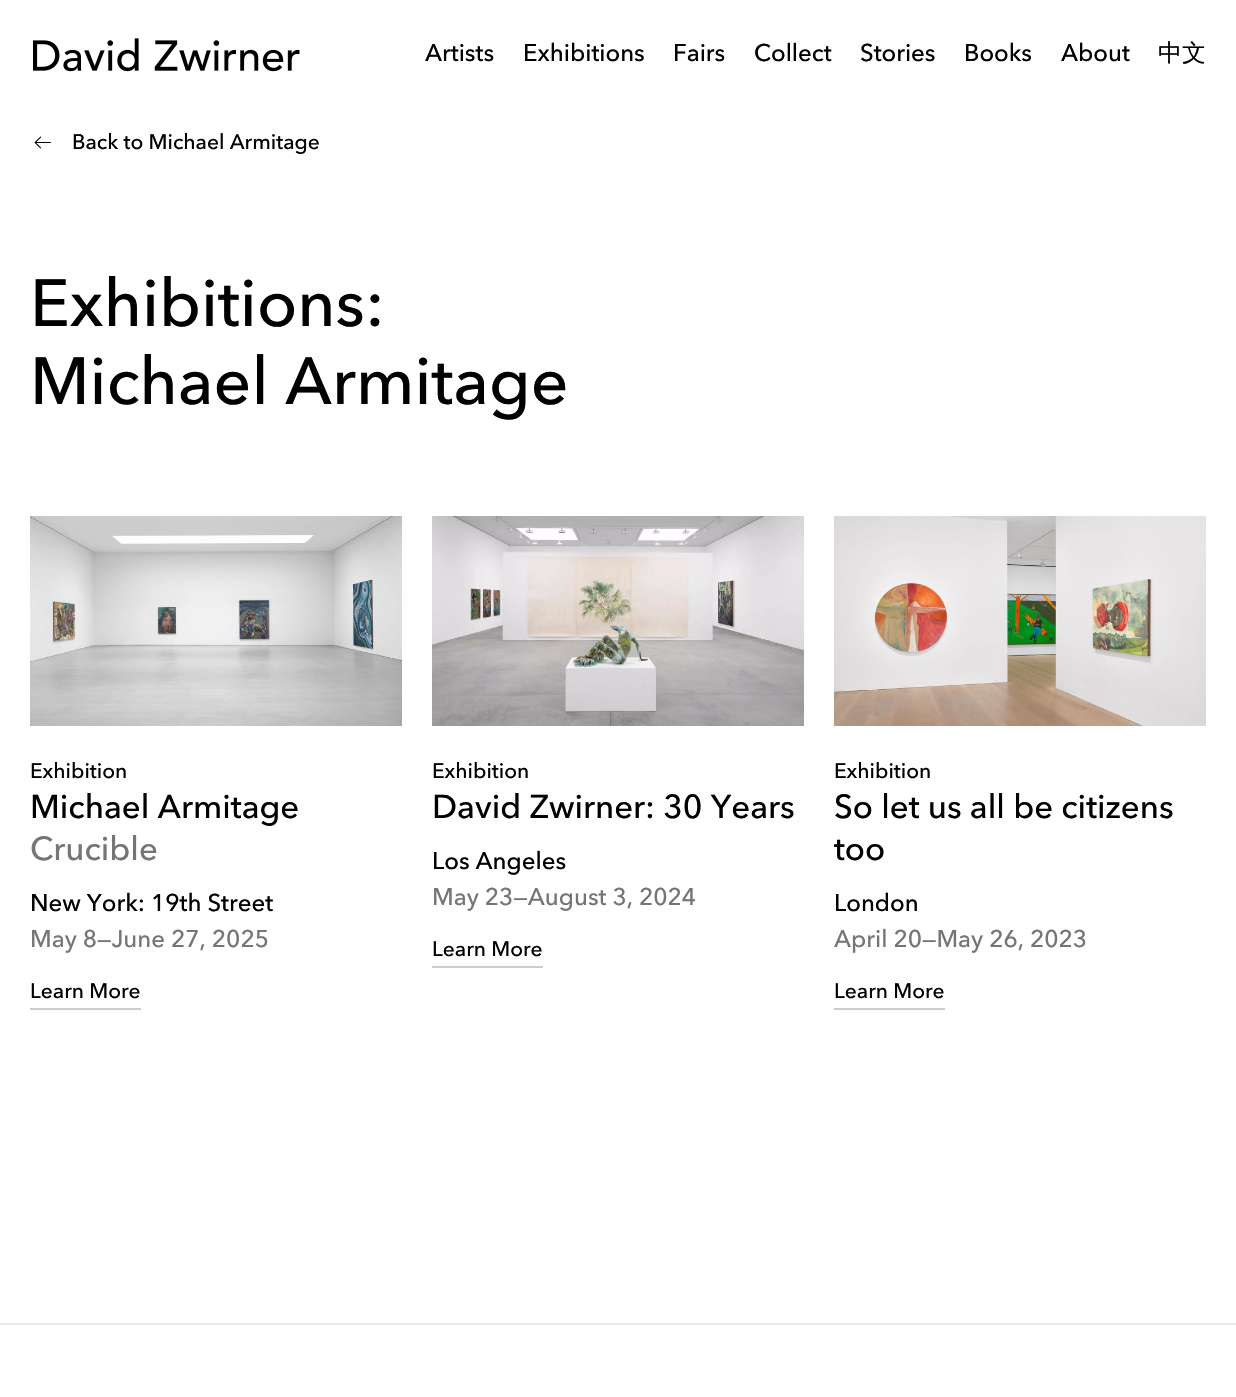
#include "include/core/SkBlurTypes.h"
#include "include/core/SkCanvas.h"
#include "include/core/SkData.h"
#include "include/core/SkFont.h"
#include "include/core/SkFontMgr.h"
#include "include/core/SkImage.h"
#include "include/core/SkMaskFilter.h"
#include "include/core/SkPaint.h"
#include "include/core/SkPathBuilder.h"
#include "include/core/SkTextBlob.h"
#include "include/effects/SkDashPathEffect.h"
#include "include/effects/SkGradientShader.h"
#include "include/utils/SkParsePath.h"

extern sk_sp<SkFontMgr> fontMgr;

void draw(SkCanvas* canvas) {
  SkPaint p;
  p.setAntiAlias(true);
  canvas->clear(SK_ColorWHITE);
  canvas->drawImageRect(SkImages::DeferredFromEncodedData(SkData::MakeFromFileName("images/1.png")), SkRect::MakeLTRB(33, 38, 300, 72), SkSamplingOptions());
  canvas->drawImageRect(SkImages::DeferredFromEncodedData(SkData::MakeFromFileName("images/2.png")), SkRect::MakeLTRB(34, 136, 51, 149), SkSamplingOptions());
  canvas->drawImageRect(SkImages::DeferredFromEncodedData(SkData::MakeFromFileName("images/3.png")), SkRect::MakeLTRB(30, 516, 402, 726), SkSamplingOptions());
  p.setColor(SkColorSetRGB(205, 205, 205));
  canvas->drawRect(SkRect::MakeLTRB(30, 1008, 141, 1010), p);
  canvas->drawImageRect(SkImages::DeferredFromEncodedData(SkData::MakeFromFileName("images/4.png")), SkRect::MakeLTRB(432, 516, 804, 726), SkSamplingOptions());
  canvas->drawRect(SkRect::MakeLTRB(432, 966, 543, 968), p);
  canvas->drawImageRect(SkImages::DeferredFromEncodedData(SkData::MakeFromFileName("images/5.png")), SkRect::MakeLTRB(834, 516, 1206, 726), SkSamplingOptions());
  canvas->drawRect(SkRect::MakeLTRB(834, 1008, 945, 1010), p);
  p.setColor(SkColorSetRGB(232, 232, 232));
  canvas->drawRect(SkRect::MakeLTRB(0, 1323, 1236, 1325), p);
  SkFont font1(fontMgr->matchFamilyStyle("Avenir Next", SkFontStyle(500, SkFontStyle::kNormal_Width, SkFontStyle::kUpright_Slant)), 24);
  font1.setSubpixel(true);
  p.setColor(SK_ColorBLACK);
  canvas->drawString("Artists", 425, 61, font1, p);
  canvas->drawString("Exhibitions", 523, 61, font1, p);
  canvas->drawString("Fairs", 673, 61, font1, p);
  canvas->drawString("Collect", 754, 61, font1, p);
  canvas->drawString("Stories", 860, 61, font1, p);
  canvas->drawString("Books", 964, 61, font1, p);
  canvas->drawString("About", 1061, 61, font1, p);
  SkFont font2(fontMgr->matchFamilyStyle("WenQuanYi Zen Hei", SkFontStyle(500, SkFontStyle::kNormal_Width, SkFontStyle::kUpright_Slant)), 24);
  font2.setSubpixel(true);
  canvas->drawString("中文", 1158, 61, font2, p);
  SkFont font3(fontMgr->matchFamilyStyle("Avenir Next", SkFontStyle(500, SkFontStyle::kNormal_Width, SkFontStyle::kUpright_Slant)), 21);
  font3.setSubpixel(true);
  canvas->drawString("Back to Michael Armitage", 72, 149, font3, p);
  SkFont font4(fontMgr->matchFamilyStyle("Avenir Next", SkFontStyle(500, SkFontStyle::kNormal_Width, SkFontStyle::kUpright_Slant)), 66);
  font4.setSubpixel(true);
  canvas->drawString("Exhibitions:", 30, 326, font4, p);
  canvas->drawString("Michael Armitage", 30, 404, font4, p);
  canvas->drawString("Exhibition", 30, 778, font3, p);
  SkFont font5(fontMgr->matchFamilyStyle("Avenir Next", SkFontStyle(500, SkFontStyle::kNormal_Width, SkFontStyle::kUpright_Slant)), 33);
  font5.setSubpixel(true);
  canvas->drawString("Michael Armitage", 30, 818, font5, p);
  p.setColor(SkColorSetRGB(117, 117, 117));
  canvas->drawString("Crucible", 30, 860, font5, p);
  p.setColor(SK_ColorBLACK);
  canvas->drawString("New York: 19th Street", 30, 911, font1, p);
  p.setColor(SkColorSetRGB(117, 117, 117));
  canvas->drawString("May 8—June 27, 2025", 30, 947, font1, p);
  p.setColor(SK_ColorBLACK);
  canvas->drawString("Learn More", 30, 998, font3, p);
  canvas->drawString("Exhibition", 432, 778, font3, p);
  canvas->drawString("David Zwirner: 30 Years", 432, 818, font5, p);
  canvas->drawString("Los Angeles", 432, 869, font1, p);
  p.setColor(SkColorSetRGB(117, 117, 117));
  canvas->drawString("May 23—August 3, 2024", 432, 905, font1, p);
  p.setColor(SK_ColorBLACK);
  canvas->drawString("Learn More", 432, 956, font3, p);
  canvas->drawString("Exhibition", 834, 778, font3, p);
  canvas->drawString("So let us all be citizens", 834, 818, font5, p);
  canvas->drawString("too", 834, 860, font5, p);
  canvas->drawString("London", 834, 911, font1, p);
  p.setColor(SkColorSetRGB(117, 117, 117));
  canvas->drawString("April 20—May 26, 2023", 834, 947, font1, p);
  p.setColor(SK_ColorBLACK);
  canvas->drawString("Learn More", 834, 998, font3, p);
}
